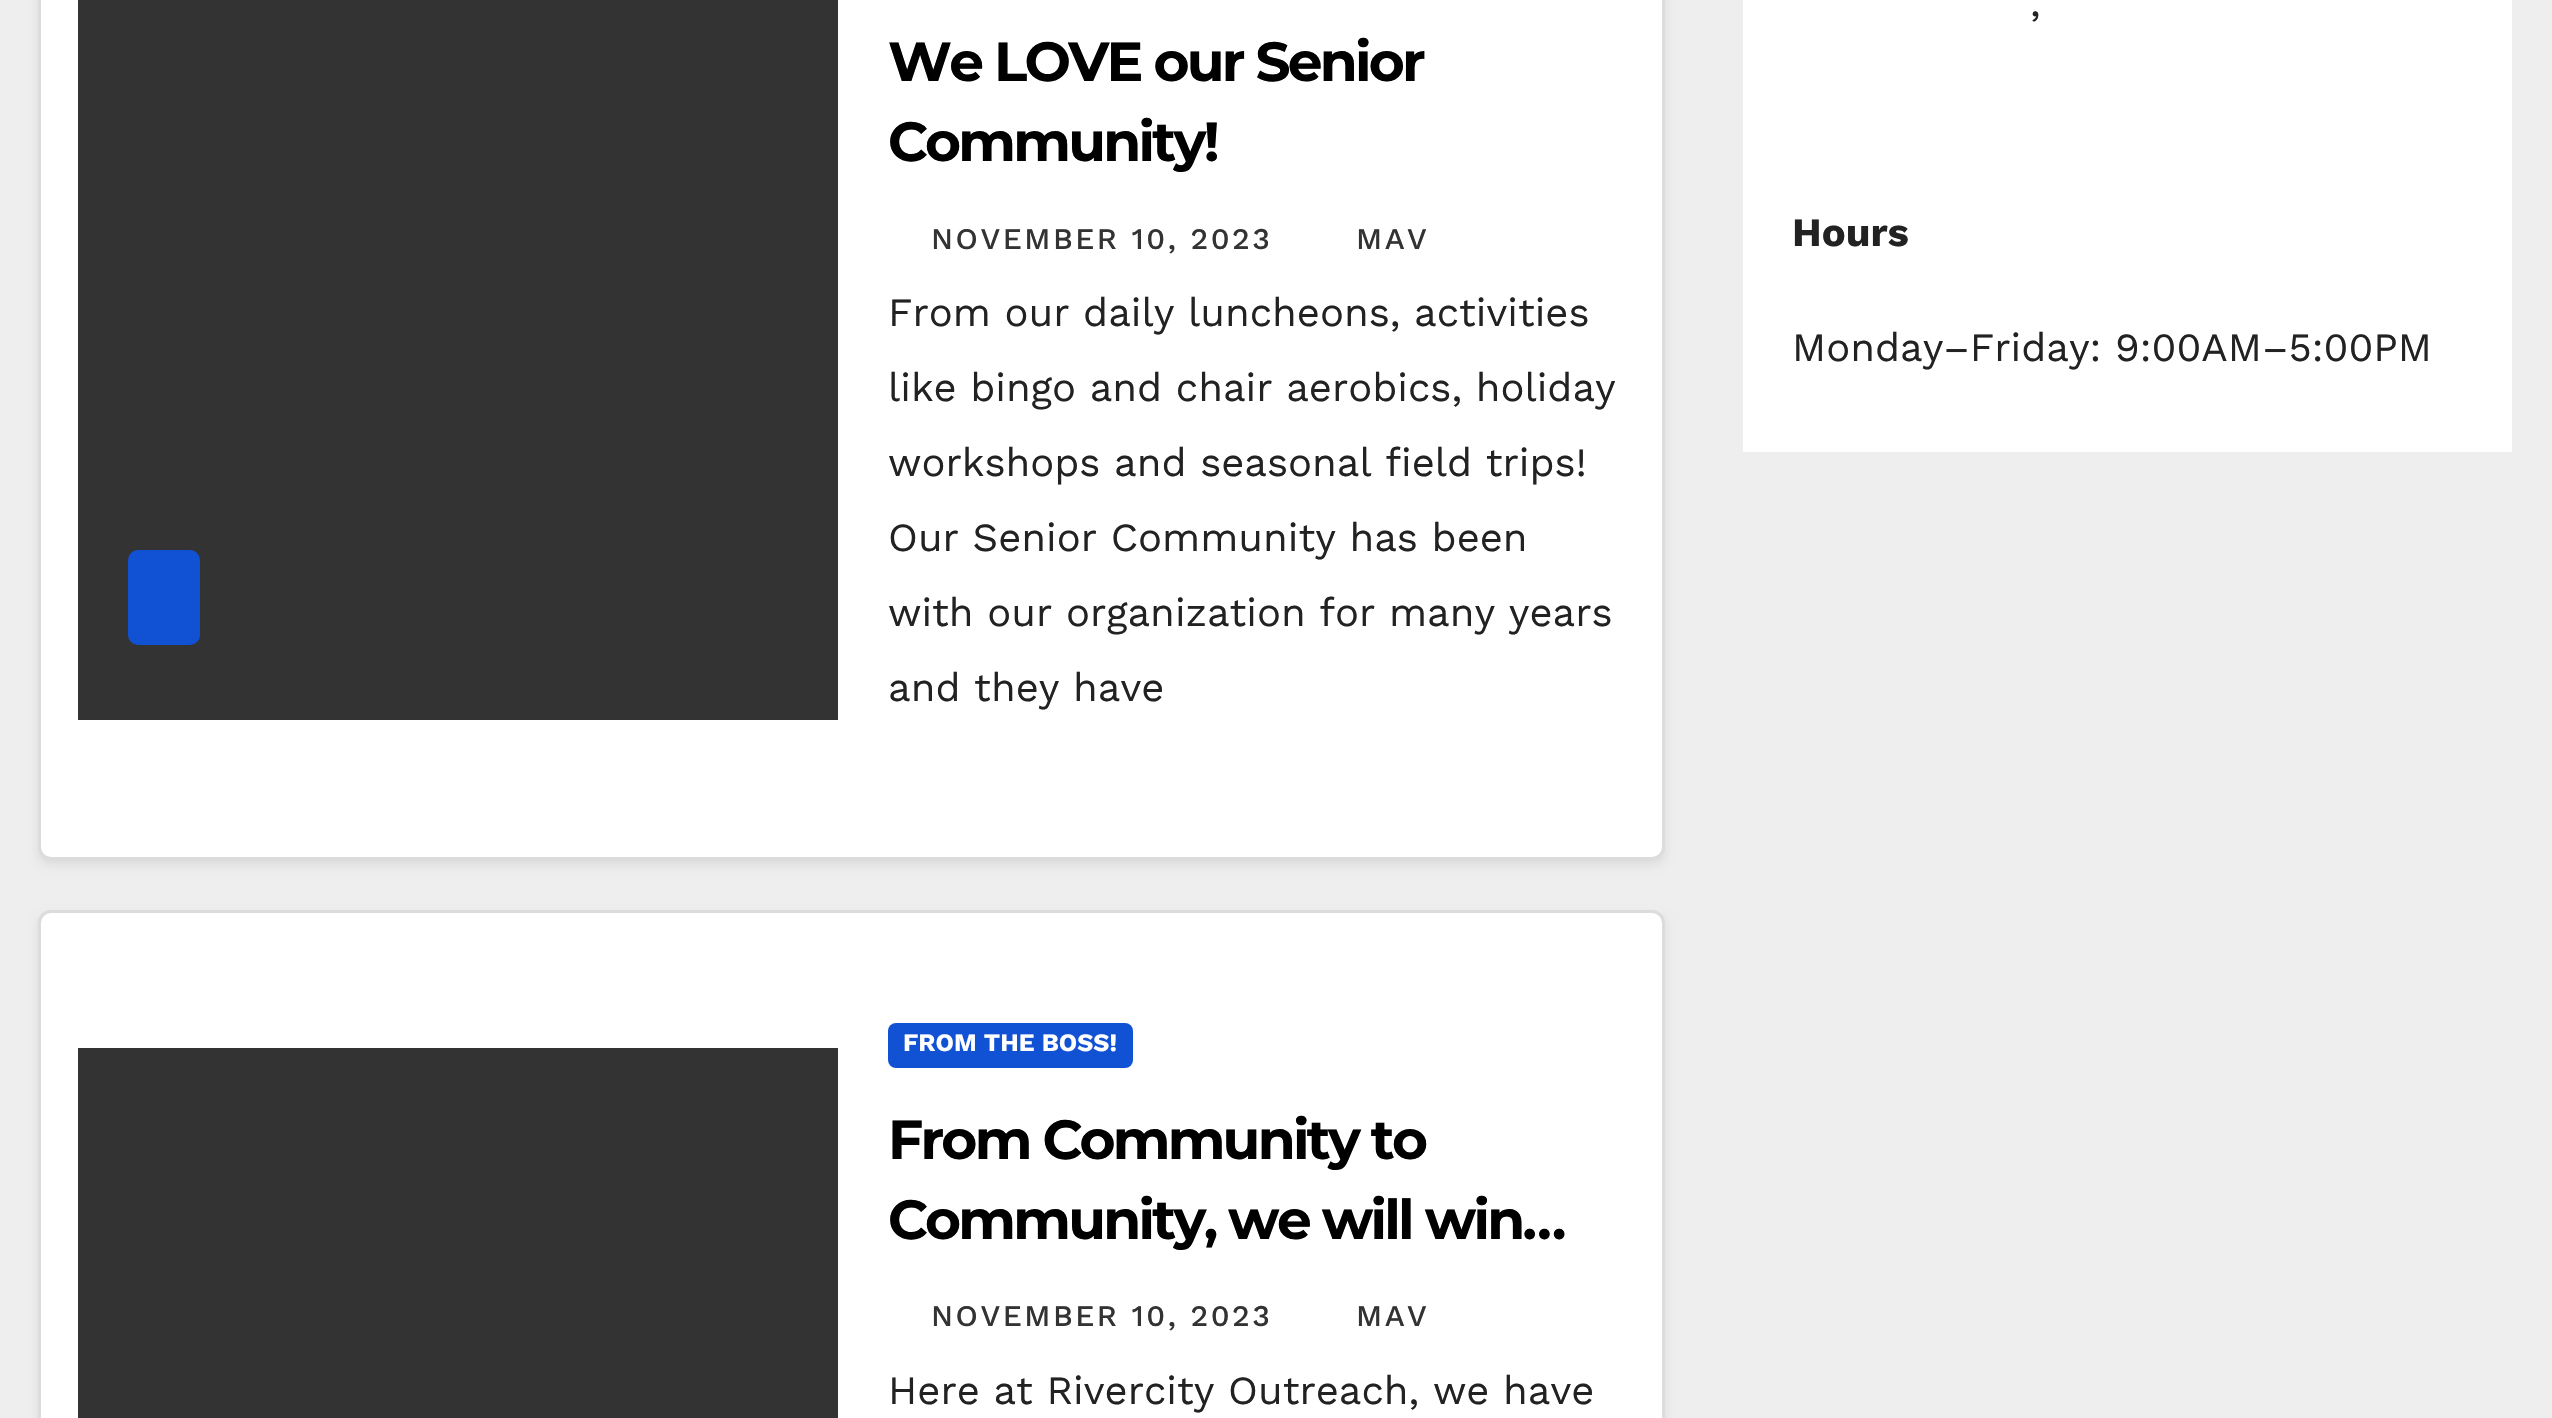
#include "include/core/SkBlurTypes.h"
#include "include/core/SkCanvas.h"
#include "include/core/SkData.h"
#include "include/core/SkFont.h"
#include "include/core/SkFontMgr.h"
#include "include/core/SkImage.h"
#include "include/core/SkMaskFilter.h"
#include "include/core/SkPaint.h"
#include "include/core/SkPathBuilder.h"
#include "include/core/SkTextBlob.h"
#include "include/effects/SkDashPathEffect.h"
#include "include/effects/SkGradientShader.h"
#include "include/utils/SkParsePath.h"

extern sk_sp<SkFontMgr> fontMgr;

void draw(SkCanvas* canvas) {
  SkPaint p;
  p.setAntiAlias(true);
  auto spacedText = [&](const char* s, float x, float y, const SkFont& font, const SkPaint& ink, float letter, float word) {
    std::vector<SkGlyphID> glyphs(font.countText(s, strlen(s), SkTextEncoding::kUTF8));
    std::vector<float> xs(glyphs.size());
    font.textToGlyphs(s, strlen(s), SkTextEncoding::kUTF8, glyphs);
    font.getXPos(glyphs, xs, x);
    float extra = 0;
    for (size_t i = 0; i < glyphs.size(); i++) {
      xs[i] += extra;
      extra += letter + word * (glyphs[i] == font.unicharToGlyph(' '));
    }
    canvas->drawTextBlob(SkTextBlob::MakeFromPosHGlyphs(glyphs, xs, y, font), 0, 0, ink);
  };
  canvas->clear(SkColorSetRGB(238, 238, 238));
  p.setColor(SkColorSetARGB(20, 0, 0, 0));
  p.setMaskFilter(SkMaskFilter::MakeBlur(kNormal_SkBlurStyle, 5));
  canvas->drawRoundRect(SkRect::MakeLTRB(38, -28, 1665, 865), 13, 13, p);
  p.setMaskFilter(nullptr);
  p.setColor(SK_ColorWHITE);
  canvas->drawRoundRect(SkRect::MakeLTRB(39.5f, -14.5f, 1663.5f, 858.5f), 11.5f, 11.5f, p);
  p.setStyle(SkPaint::kStroke_Style);
  p.setStrokeWidth(3);
  p.setColor(SkColorSetRGB(221, 220, 220));
  canvas->drawRoundRect(SkRect::MakeLTRB(39.5f, -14.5f, 1663.5f, 858.5f), 11.5f, 11.5f, p);
  p.setStyle(SkPaint::kFill_Style);
  p.setColor(SkColorSetRGB(51, 51, 51));
  canvas->drawRect(SkRect::MakeLTRB(78, 0, 838, 720), p);
  p.setColor(SkColorSetRGB(17, 81, 211));
  canvas->drawRoundRect(SkRect::MakeLTRB(128, 550, 200, 645), 10, 10, p);
  p.setColor(SkColorSetARGB(20, 0, 0, 0));
  p.setMaskFilter(SkMaskFilter::MakeBlur(kNormal_SkBlurStyle, 5));
  canvas->drawRoundRect(SkRect::MakeLTRB(38, 915, 1665, 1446), 13, 13, p);
  p.setMaskFilter(nullptr);
  p.setColor(SK_ColorWHITE);
  canvas->drawRoundRect(SkRect::MakeLTRB(39.5f, 911.5f, 1663.5f, 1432.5f), 11.5f, 11.5f, p);
  p.setStyle(SkPaint::kStroke_Style);
  p.setColor(SkColorSetRGB(221, 220, 220));
  canvas->drawRoundRect(SkRect::MakeLTRB(39.5f, 911.5f, 1663.5f, 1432.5f), 11.5f, 11.5f, p);
  p.setStyle(SkPaint::kFill_Style);
  p.setColor(SkColorSetRGB(51, 51, 51));
  canvas->drawRect(SkRect::MakeLTRB(78, 1048, 838, 1418), p);
  p.setColor(SkColorSetRGB(17, 81, 211));
  canvas->drawRoundRect(SkRect::MakeLTRB(888, 1023, 1133, 1068), 8, 8, p);
  p.setColor(SK_ColorWHITE);
  canvas->drawRect(SkRect::MakeLTRB(1743, 0, 2512, 452), p);
  SkFont font1(fontMgr->matchFamilyStyle("Montserrat", SkFontStyle::Bold()), 55);
  font1.setSubpixel(true);
  p.setColor(SK_ColorBLACK);
  spacedText("We LOVE our Senior", 888, 81, font1, p, -2.75f, 0);
  spacedText("Community!", 888, 161, font1, p, -2.75f, 0);
  SkFont font2(fontMgr->matchFamilyStyle("Work Sans", SkFontStyle(500, SkFontStyle::kNormal_Width, SkFontStyle::kUpright_Slant)), 30);
  font2.setSubpixel(true);
  p.setColor(SkColorSetRGB(51, 51, 51));
  spacedText("NOVEMBER 10, 2023", 931, 249, font2, p, 2.5f, 0);
  spacedText("MAV", 1356, 249, font2, p, 2.5f, 0);
  SkFont font3(fontMgr->matchFamilyStyle("Work Sans", SkFontStyle::Normal()), 40);
  font3.setSubpixel(true);
  p.setColor(SkColorSetRGB(34, 34, 34));
  canvas->drawString("From our daily luncheons, activities", 888, 326, font3, p);
  canvas->drawString("like bingo and chair aerobics, holiday", 888, 401, font3, p);
  canvas->drawString("workshops and seasonal field trips!", 888, 476, font3, p);
  canvas->drawString("Our Senior Community has been", 888, 551, font3, p);
  canvas->drawString("with our organization for many years", 888, 626, font3, p);
  canvas->drawString("and they have", 888, 701, font3, p);
  SkFont font4(fontMgr->matchFamilyStyle("Work Sans", SkFontStyle::Bold()), 25);
  font4.setSubpixel(true);
  p.setColor(SK_ColorWHITE);
  canvas->drawString("FROM THE BOSS!", 903, 1051, font4, p);
  p.setColor(SK_ColorBLACK);
  spacedText("From Community to", 888, 1159, font1, p, -2.75f, 0);
  spacedText("Community, we will win…", 888, 1239, font1, p, -2.75f, 0);
  p.setColor(SkColorSetRGB(51, 51, 51));
  spacedText("NOVEMBER 10, 2023", 931, 1326, font2, p, 2.5f, 0);
  spacedText("MAV", 1356, 1326, font2, p, 2.5f, 0);
  p.setColor(SkColorSetRGB(34, 34, 34));
  canvas->drawString("Here at Rivercity Outreach, we have", 888, 1404, font3, p);
  canvas->drawString(",", 2030, 16, font3, p);
  SkFont font5(fontMgr->matchFamilyStyle("Work Sans", SkFontStyle::Bold()), 40);
  font5.setSubpixel(true);
  canvas->drawString("Hours", 1792, 246, font5, p);
  canvas->drawString("Monday–Friday: 9:00AM–5:00PM", 1792, 361, font3, p);
}
